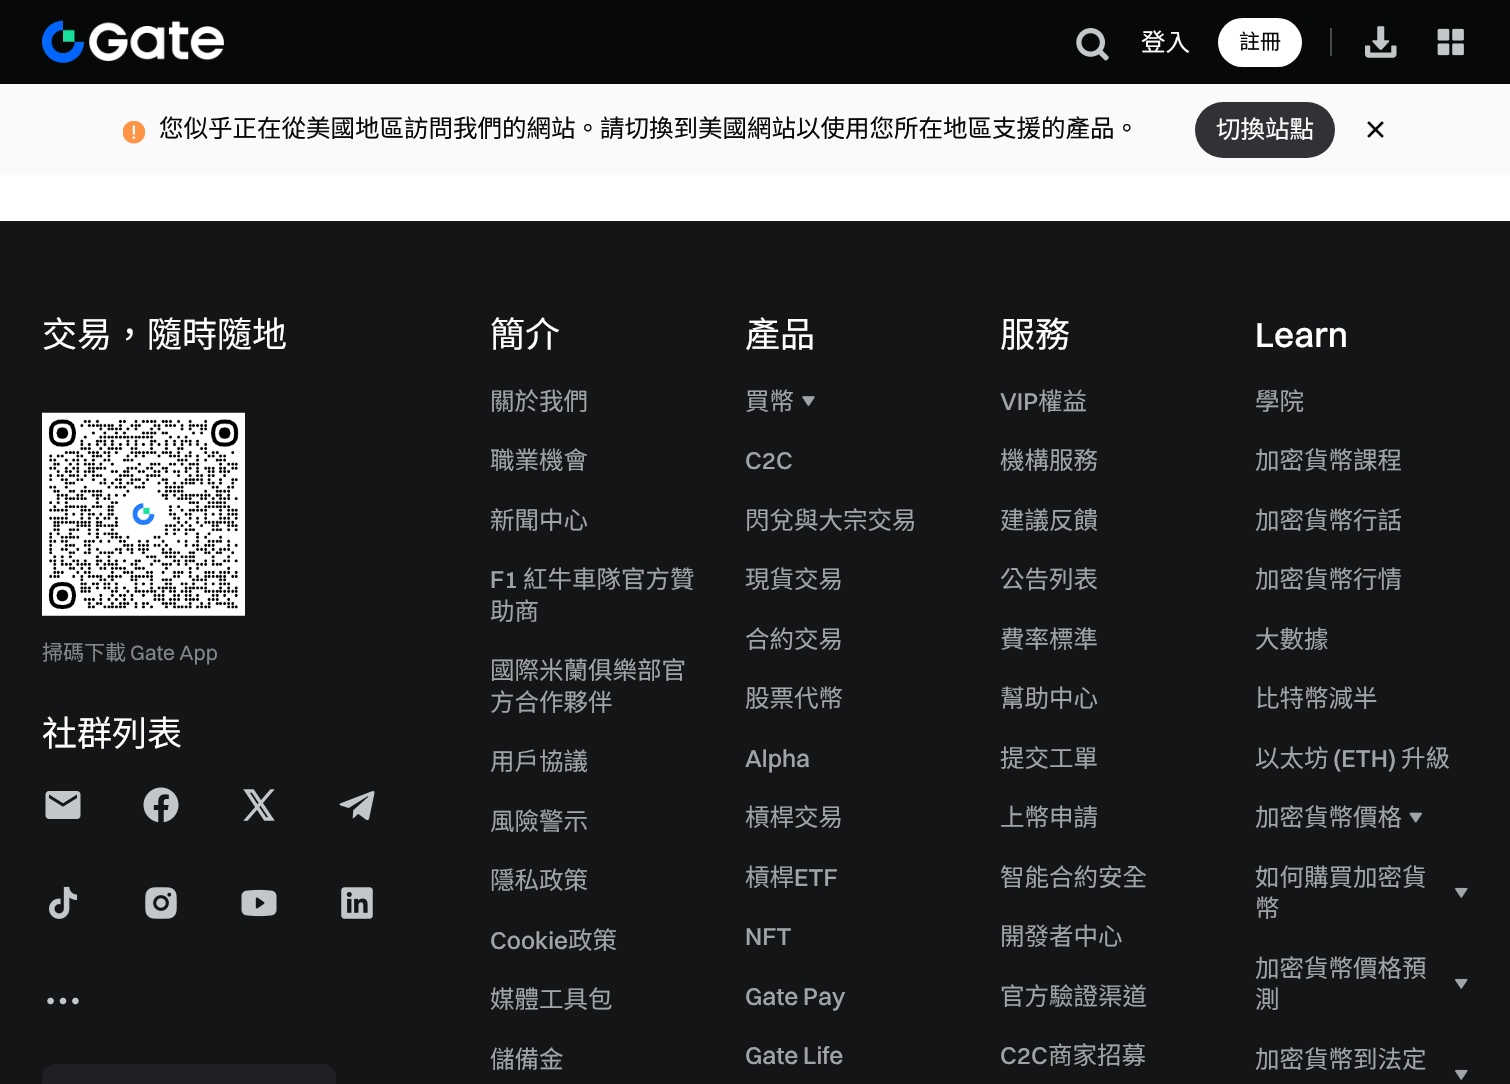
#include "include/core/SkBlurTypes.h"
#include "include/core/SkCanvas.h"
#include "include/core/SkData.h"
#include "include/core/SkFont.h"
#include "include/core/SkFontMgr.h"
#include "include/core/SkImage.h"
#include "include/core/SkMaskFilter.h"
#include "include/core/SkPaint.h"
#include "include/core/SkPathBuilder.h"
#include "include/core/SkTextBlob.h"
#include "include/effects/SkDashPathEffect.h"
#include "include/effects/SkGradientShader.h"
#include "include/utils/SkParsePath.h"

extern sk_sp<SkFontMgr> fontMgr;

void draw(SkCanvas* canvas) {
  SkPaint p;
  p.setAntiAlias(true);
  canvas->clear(SK_ColorWHITE);
  p.setColor(SkColorSetRGB(7, 8, 8));
  canvas->drawRect(SkRect::MakeLTRB(0, 0, 1510, 84), p);
  canvas->drawImageRect(SkImages::DeferredFromEncodedData(SkData::MakeFromFileName("images/1.png")), SkRect::MakeLTRB(42, 20, 224, 63), SkSamplingOptions());
  canvas->drawImageRect(SkImages::DeferredFromEncodedData(SkData::MakeFromFileName("images/2.png")), SkRect::MakeLTRB(1076, 28, 1109, 61), SkSamplingOptions());
  p.setColor(SK_ColorWHITE);
  canvas->drawRoundRect(SkRect::MakeLTRB(1218, 18, 1302, 67), 24.5f, 24.5f, p);
  p.setColor(SkColorSetRGB(72, 75, 81));
  canvas->drawRect(SkRect::MakeLTRB(1330, 28, 1332, 56), p);
  canvas->drawImageRect(SkImages::DeferredFromEncodedData(SkData::MakeFromFileName("images/3.png")), SkRect::MakeLTRB(1365, 26, 1397, 58), SkSamplingOptions());
  canvas->drawImageRect(SkImages::DeferredFromEncodedData(SkData::MakeFromFileName("images/4.png")), SkRect::MakeLTRB(1437, 28, 1464, 56), SkSamplingOptions());
  p.setColor(SkColorSetRGB(250, 250, 250));
  canvas->drawRect(SkRect::MakeLTRB(0, 84, 1510, 175), p);
  canvas->drawImageRect(SkImages::DeferredFromEncodedData(SkData::MakeFromFileName("images/5.png")), SkRect::MakeLTRB(123, 121, 145, 144), SkSamplingOptions());
  p.setColor(SkColorSetRGB(48, 50, 54));
  canvas->drawRoundRect(SkRect::MakeLTRB(1195, 102, 1335, 158), 28, 28, p);
  canvas->drawImageRect(SkImages::DeferredFromEncodedData(SkData::MakeFromFileName("images/6.png")), SkRect::MakeLTRB(1367, 121, 1384, 138), SkSamplingOptions());
  p.setColor(SkColorSetRGB(19, 21, 22));
  canvas->drawRect(SkRect::MakeLTRB(0, 221, 1510, 1084), p);
  canvas->drawImageRect(SkImages::DeferredFromEncodedData(SkData::MakeFromFileName("images/7.png")), SkRect::MakeLTRB(42, 412, 245, 616), SkSamplingOptions());
  canvas->drawImageRect(SkImages::DeferredFromEncodedData(SkData::MakeFromFileName("images/8.png")), SkRect::MakeLTRB(45, 791, 81, 819), SkSamplingOptions());
  canvas->drawImageRect(SkImages::DeferredFromEncodedData(SkData::MakeFromFileName("images/9.png")), SkRect::MakeLTRB(143, 787, 179, 823), SkSamplingOptions());
  canvas->drawImageRect(SkImages::DeferredFromEncodedData(SkData::MakeFromFileName("images/10.png")), SkRect::MakeLTRB(243, 789, 275, 821), SkSamplingOptions());
  canvas->drawImageRect(SkImages::DeferredFromEncodedData(SkData::MakeFromFileName("images/11.png")), SkRect::MakeLTRB(339, 791, 375, 821), SkSamplingOptions());
  canvas->drawImageRect(SkImages::DeferredFromEncodedData(SkData::MakeFromFileName("images/12.png")), SkRect::MakeLTRB(49, 886, 77, 919), SkSamplingOptions());
  canvas->drawImageRect(SkImages::DeferredFromEncodedData(SkData::MakeFromFileName("images/13.png")), SkRect::MakeLTRB(145, 887, 177, 919), SkSamplingOptions());
  canvas->drawImageRect(SkImages::DeferredFromEncodedData(SkData::MakeFromFileName("images/14.png")), SkRect::MakeLTRB(241, 889, 277, 917), SkSamplingOptions());
  canvas->drawImageRect(SkImages::DeferredFromEncodedData(SkData::MakeFromFileName("images/15.png")), SkRect::MakeLTRB(341, 887, 373, 919), SkSamplingOptions());
  canvas->drawImageRect(SkImages::DeferredFromEncodedData(SkData::MakeFromFileName("images/16.png")), SkRect::MakeLTRB(47, 997, 79, 1005), SkSamplingOptions());
  p.setColor(SkColorSetRGB(31, 32, 35));
  canvas->drawRoundRect(SkRect::MakeLTRB(43, 1065, 335, 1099), 13, 13, p);
  p.setStyle(SkPaint::kStroke_Style);
  p.setStrokeWidth(2);
  canvas->drawRoundRect(SkRect::MakeLTRB(43, 1065, 335, 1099), 13, 13, p);
  canvas->drawImageRect(SkImages::DeferredFromEncodedData(SkData::MakeFromFileName("images/17.png")), SkRect::MakeLTRB(802, 396, 815, 406), SkSamplingOptions());
  canvas->drawImageRect(SkImages::DeferredFromEncodedData(SkData::MakeFromFileName("images/18.png")), SkRect::MakeLTRB(1409, 812, 1422, 823), SkSamplingOptions());
  canvas->drawImageRect(SkImages::DeferredFromEncodedData(SkData::MakeFromFileName("images/19.png")), SkRect::MakeLTRB(1455, 887, 1468, 898), SkSamplingOptions());
  canvas->drawImageRect(SkImages::DeferredFromEncodedData(SkData::MakeFromFileName("images/19.png")), SkRect::MakeLTRB(1455, 978, 1468, 989), SkSamplingOptions());
  canvas->drawImageRect(SkImages::DeferredFromEncodedData(SkData::MakeFromFileName("images/19.png")), SkRect::MakeLTRB(1455, 1069, 1468, 1080), SkSamplingOptions());
  SkFont font1(fontMgr->matchFamilyStyle("Noto Sans CJK TC", SkFontStyle::Normal()), 24.5f);
  font1.setSubpixel(true);
  p.setStyle(SkPaint::kFill_Style);
  p.setColor(SK_ColorWHITE);
  canvas->drawString("登入", 1141, 51, font1, p);
  SkFont font2(fontMgr->matchFamilyStyle("Noto Sans CJK TC", SkFontStyle::Normal()), 21);
  font2.setSubpixel(true);
  p.setColor(SkColorSetRGB(7, 8, 8));
  canvas->drawString("註冊", 1239, 49, font2, p);
  canvas->drawString("您似乎正在從美國地區訪問我們的網站。請切換到美國網站以使用您所在地區支援的產品。", 159, 137, font1, p);
  p.setColor(SK_ColorWHITE);
  canvas->drawString("切換站點", 1216, 138, font1, p);
  SkFont font3(fontMgr->matchFamilyStyle("Noto Sans CJK TC", SkFontStyle::Normal()), 35);
  font3.setSubpixel(true);
  canvas->drawString("交易，隨時隨地", 42, 347, font3, p);
  p.setColor(SkColorSetRGB(132, 136, 140));
  canvas->drawString("掃碼下載", 42, 660, font2, p);
  SkFont font4(fontMgr->matchFamilyStyle("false", SkFontStyle::Normal()), 21);
  font4.setSubpixel(true);
  canvas->drawString("Gate App", 130, 660, font4, p);
  p.setColor(SK_ColorWHITE);
  canvas->drawString("社群列表", 42, 746, font3, p);
  canvas->drawString("簡介", 490, 347, font3, p);
  p.setColor(SkColorSetRGB(160, 163, 167));
  canvas->drawString("關於我們", 490, 410, font1, p);
  canvas->drawString("職業機會", 490, 469, font1, p);
  canvas->drawString("新聞中心", 490, 529, font1, p);
  SkFont font5(fontMgr->matchFamilyStyle("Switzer", SkFontStyle(500, SkFontStyle::kNormal_Width, SkFontStyle::kUpright_Slant)), 24.5f);
  font5.setSubpixel(true);
  canvas->drawString("F1", 490, 588, font5, p);
  canvas->drawString("紅牛車隊官方贊", 523, 588, font1, p);
  canvas->drawString("助商", 490, 620, font1, p);
  canvas->drawString("國際米蘭俱樂部官", 490, 679, font1, p);
  canvas->drawString("方合作夥伴", 490, 711, font1, p);
  canvas->drawString("用戶協議", 490, 770, font1, p);
  canvas->drawString("風險警示", 490, 830, font1, p);
  canvas->drawString("隱私政策", 490, 889, font1, p);
  canvas->drawString("Cookie", 490, 949, font5, p);
  canvas->drawString("政策", 568, 949, font1, p);
  canvas->drawString("媒體工具包", 490, 1008, font1, p);
  canvas->drawString("儲備金", 490, 1068, font1, p);
  p.setColor(SK_ColorWHITE);
  canvas->drawString("產品", 745, 347, font3, p);
  p.setColor(SkColorSetRGB(160, 163, 167));
  canvas->drawString("買幣", 745, 410, font1, p);
  canvas->drawString("C2C", 745, 469, font5, p);
  canvas->drawString("閃兌與大宗交易", 745, 529, font1, p);
  canvas->drawString("現貨交易", 745, 588, font1, p);
  canvas->drawString("合約交易", 745, 648, font1, p);
  canvas->drawString("股票代幣", 745, 707, font1, p);
  canvas->drawString("Alpha", 745, 767, font5, p);
  canvas->drawString("槓桿交易", 745, 826, font1, p);
  canvas->drawString("槓桿", 745, 886, font1, p);
  canvas->drawString("ETF", 794, 886, font5, p);
  canvas->drawString("NFT", 745, 945, font5, p);
  canvas->drawString("Gate Pay", 745, 1005, font5, p);
  canvas->drawString("Gate Life", 745, 1064, font5, p);
  p.setColor(SK_ColorWHITE);
  canvas->drawString("服務", 1000, 347, font3, p);
  p.setColor(SkColorSetRGB(160, 163, 167));
  canvas->drawString("VIP", 1000, 410, font5, p);
  canvas->drawString("權益", 1038, 410, font1, p);
  canvas->drawString("機構服務", 1000, 469, font1, p);
  canvas->drawString("建議反饋", 1000, 529, font1, p);
  canvas->drawString("公告列表", 1000, 588, font1, p);
  canvas->drawString("費率標準", 1000, 648, font1, p);
  canvas->drawString("幫助中心", 1000, 707, font1, p);
  canvas->drawString("提交工單", 1000, 767, font1, p);
  canvas->drawString("上幣申請", 1000, 826, font1, p);
  canvas->drawString("智能合約安全", 1000, 886, font1, p);
  canvas->drawString("開發者中心", 1000, 945, font1, p);
  canvas->drawString("官方驗證渠道", 1000, 1005, font1, p);
  canvas->drawString("C2C", 1000, 1064, font5, p);
  canvas->drawString("商家招募", 1048, 1064, font1, p);
  SkFont font6(fontMgr->matchFamilyStyle("Switzer", SkFontStyle(500, SkFontStyle::kNormal_Width, SkFontStyle::kUpright_Slant)), 35);
  font6.setSubpixel(true);
  p.setColor(SK_ColorWHITE);
  canvas->drawString("Learn", 1255, 347, font6, p);
  p.setColor(SkColorSetRGB(160, 163, 167));
  canvas->drawString("學院", 1255, 410, font1, p);
  canvas->drawString("加密貨幣課程", 1255, 469, font1, p);
  canvas->drawString("加密貨幣行話", 1255, 529, font1, p);
  canvas->drawString("加密貨幣行情", 1255, 588, font1, p);
  canvas->drawString("大數據", 1255, 648, font1, p);
  canvas->drawString("比特幣減半", 1255, 707, font1, p);
  canvas->drawString("以太坊", 1255, 767, font1, p);
  canvas->drawString("(ETH)", 1333, 767, font5, p);
  canvas->drawString("升級", 1401, 767, font1, p);
  canvas->drawString("加密貨幣價格", 1255, 826, font1, p);
  canvas->drawString("如何購買加密貨", 1255, 886, font1, p);
  canvas->drawString("幣", 1255, 917, font1, p);
  canvas->drawString("加密貨幣價格預", 1255, 977, font1, p);
  canvas->drawString("測", 1255, 1008, font1, p);
  canvas->drawString("加密貨幣到法定", 1255, 1068, font1, p);
}
